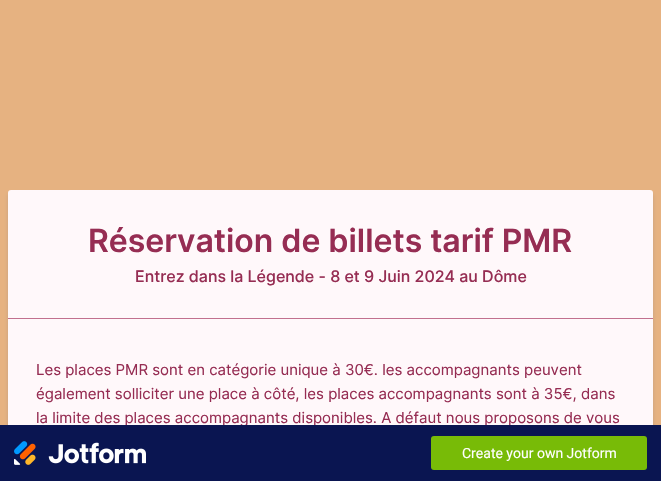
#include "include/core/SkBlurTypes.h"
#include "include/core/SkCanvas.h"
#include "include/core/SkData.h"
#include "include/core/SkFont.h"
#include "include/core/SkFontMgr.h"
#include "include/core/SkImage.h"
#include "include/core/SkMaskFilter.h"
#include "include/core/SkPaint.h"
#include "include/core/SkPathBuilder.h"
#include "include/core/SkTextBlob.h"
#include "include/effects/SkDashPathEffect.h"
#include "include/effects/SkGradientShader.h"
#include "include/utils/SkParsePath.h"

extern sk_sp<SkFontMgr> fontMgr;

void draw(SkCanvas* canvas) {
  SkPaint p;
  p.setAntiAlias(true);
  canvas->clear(SkColorSetRGB(230, 178, 129));
  p.setColor(SkColorSetARGB(54, 87, 100, 126));
  p.setMaskFilter(SkMaskFilter::MakeBlur(kNormal_SkBlurStyle, 2));
  canvas->drawRoundRect(SkRect::MakeLTRB(8, 194, 653, 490), 3, 3, p);
  p.setMaskFilter(nullptr);
  p.setColor(SkColorSetRGB(255, 248, 250));
  canvas->drawRoundRect(SkRect::MakeLTRB(8, 190, 653, 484), 3, 3, p);
  p.setColor(SkColorSetRGB(194, 112, 142));
  canvas->drawRect(SkRect::MakeLTRB(8, 318, 653, 319), p);
  SkFont font1(fontMgr->matchFamilyStyle("Inter", SkFontStyle(600, SkFontStyle::kNormal_Width, SkFontStyle::kUpright_Slant)), 32);
  font1.setSubpixel(true);
  p.setColor(SkColorSetRGB(150, 45, 83));
  canvas->drawString("Réservation de billets tarif PMR", 88, 252, font1, p);
  SkFont font2(fontMgr->matchFamilyStyle("Inter", SkFontStyle(500, SkFontStyle::kNormal_Width, SkFontStyle::kUpright_Slant)), 16);
  font2.setSubpixel(true);
  canvas->drawString("Entrez dans la Légende - 8 et 9 Juin 2024 au Dôme", 135, 282, font2, p);
  SkFont font3(fontMgr->matchFamilyStyle("Inter", SkFontStyle::Normal()), 15);
  font3.setSubpixel(true);
  canvas->drawString("Les places PMR sont en catégorie unique à 30€. les accompagnants peuvent", 36, 375, font3, p);
  canvas->drawString("également solliciter une place à côté, les places accompagnants sont à 35€, dans", 36, 399, font3, p);
  canvas->drawString("la limite des places accompagnants disponibles. A défaut nous proposons de vous", 36, 423, font3, p);
  p.setColor(SkColorSetRGB(10, 21, 81));
  canvas->drawRect(SkRect::MakeLTRB(0, 425, 661, 481), p);
  canvas->drawImageRect(SkImages::DeferredFromEncodedData(SkData::MakeFromFileName("images/1.png")), SkRect::MakeLTRB(14, 441, 146, 465), SkSamplingOptions());
  p.setColor(SkColorSetRGB(120, 187, 7));
  canvas->drawRoundRect(SkRect::MakeLTRB(431, 436, 647, 470), 3, 3, p);
  SkFont font4(fontMgr->matchFamilyStyle("Roboto", SkFontStyle::Normal()), 14);
  font4.setSubpixel(true);
  p.setColor(SK_ColorWHITE);
  canvas->drawString("Create your own Jotform", 462, 458, font4, p);
}
